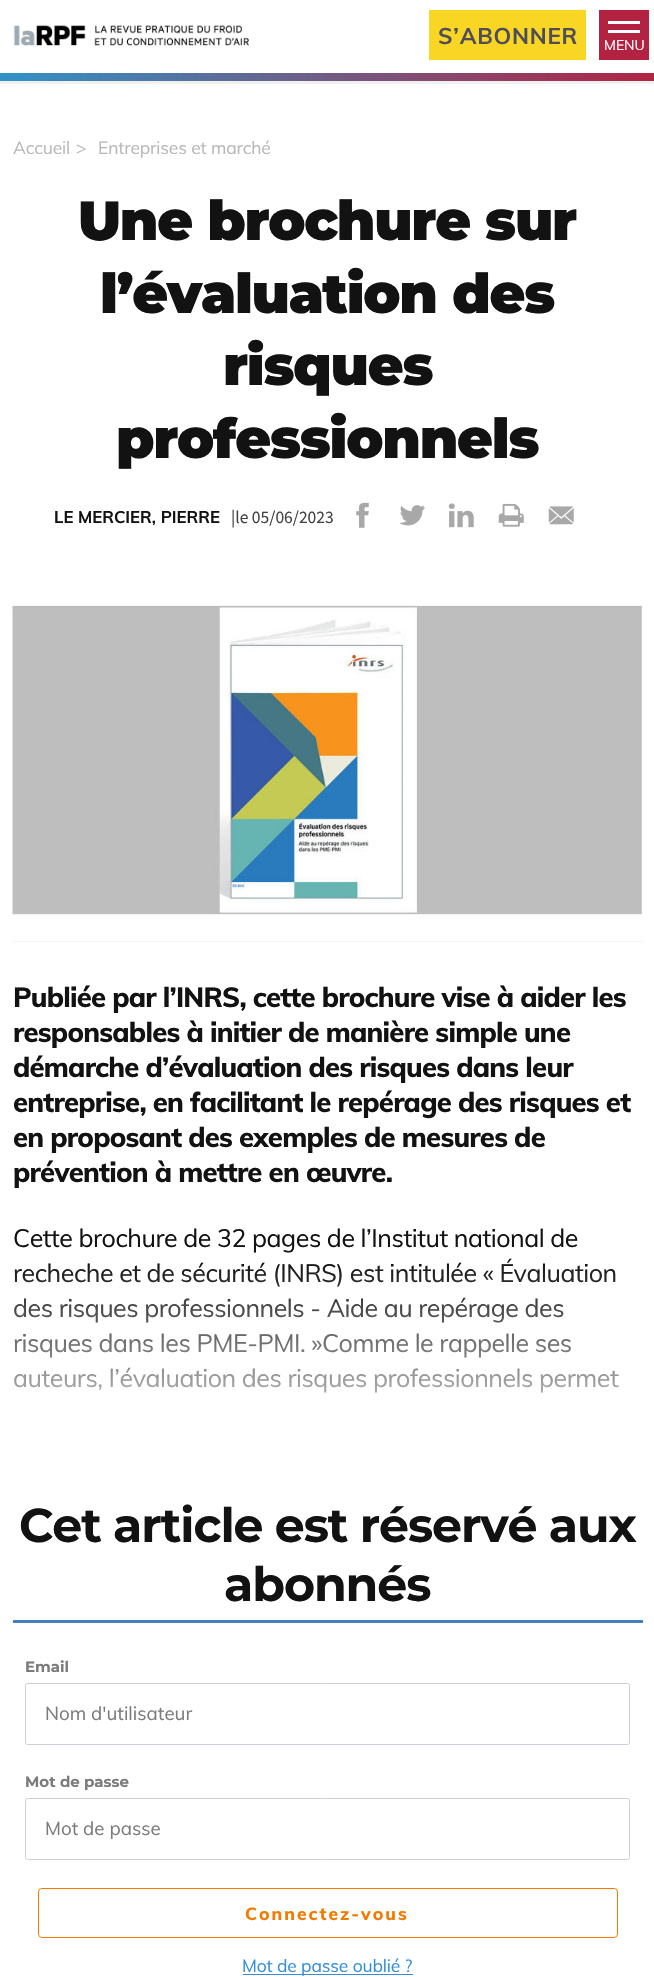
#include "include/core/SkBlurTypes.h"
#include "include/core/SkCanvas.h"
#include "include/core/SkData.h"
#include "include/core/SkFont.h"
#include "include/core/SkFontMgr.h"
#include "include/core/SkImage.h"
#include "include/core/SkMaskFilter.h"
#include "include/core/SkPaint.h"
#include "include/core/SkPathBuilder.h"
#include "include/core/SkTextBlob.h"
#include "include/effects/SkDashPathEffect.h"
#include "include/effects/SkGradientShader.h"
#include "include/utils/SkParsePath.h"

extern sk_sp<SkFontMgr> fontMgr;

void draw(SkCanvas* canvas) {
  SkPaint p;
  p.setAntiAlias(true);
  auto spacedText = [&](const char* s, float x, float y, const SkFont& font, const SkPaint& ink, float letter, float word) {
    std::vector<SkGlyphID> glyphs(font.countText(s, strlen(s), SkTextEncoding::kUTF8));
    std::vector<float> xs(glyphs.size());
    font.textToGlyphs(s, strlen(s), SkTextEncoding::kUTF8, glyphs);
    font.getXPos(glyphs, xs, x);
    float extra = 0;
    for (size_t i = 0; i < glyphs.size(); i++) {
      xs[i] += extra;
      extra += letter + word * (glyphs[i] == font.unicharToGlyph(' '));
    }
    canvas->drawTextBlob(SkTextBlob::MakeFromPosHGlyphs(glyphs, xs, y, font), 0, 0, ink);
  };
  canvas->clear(SK_ColorWHITE);
  canvas->drawImageRect(SkImages::DeferredFromEncodedData(SkData::MakeFromFileName("images/1.png")), SkRect::MakeLTRB(13, 25, 249, 46), SkSamplingOptions());
  p.setColor(SkColorSetRGB(248, 214, 35));
  canvas->drawRect(SkRect::MakeLTRB(429, 10, 586, 60), p);
  p.setColor(SkColorSetRGB(180, 34, 65));
  canvas->drawRect(SkRect::MakeLTRB(599, 10, 649, 60), p);
  p.setColor(SK_ColorWHITE);
  canvas->drawRect(SkRect::MakeLTRB(608, 21, 640, 24), p);
  canvas->drawRect(SkRect::MakeLTRB(608, 30, 640, 33), p);
  {
    const SkColor colors[] = {SkColorSetRGB(46, 148, 200), SkColorSetRGB(180, 34, 65)};
    const float stops[] = {0, 1};
    const SkPoint ends[] = {{-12, 77}, {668, 77}};
    p.setShader(SkGradientShader::MakeLinear(ends, colors, stops, 2, SkTileMode::kClamp));
    p.setAlpha(255);
  }
  canvas->drawRect(SkRect::MakeLTRB(0, 73, 654, 81), p);
  p.setShader(nullptr);
  p.setColor(SkColorSetRGB(240, 240, 240));
  canvas->drawRect(SkRect::MakeLTRB(0, 81, 654, 84), p);
  canvas->drawImageRect(SkImages::DeferredFromEncodedData(SkData::MakeFromFileName("images/2.png")), SkRect::MakeLTRB(356, 502, 369, 528), SkSamplingOptions());
  canvas->drawImageRect(SkImages::DeferredFromEncodedData(SkData::MakeFromFileName("images/3.png")), SkRect::MakeLTRB(400, 505, 425, 526), SkSamplingOptions());
  canvas->drawImageRect(SkImages::DeferredFromEncodedData(SkData::MakeFromFileName("images/4.png")), SkRect::MakeLTRB(448, 503, 474, 528), SkSamplingOptions());
  canvas->drawImageRect(SkImages::DeferredFromEncodedData(SkData::MakeFromFileName("images/5.png")), SkRect::MakeLTRB(498, 503, 524, 527), SkSamplingOptions());
  canvas->drawImageRect(SkImages::DeferredFromEncodedData(SkData::MakeFromFileName("images/6.png")), SkRect::MakeLTRB(548, 506, 574, 525), SkSamplingOptions());
  canvas->drawImageRect(SkImages::DeferredFromEncodedData(SkData::MakeFromFileName("images/7.png")), SkRect::MakeLTRB(12, 605, 643, 915), SkSamplingOptions());
  p.setColor(SkColorSetRGB(244, 244, 244));
  canvas->drawRect(SkRect::MakeLTRB(13, 941, 643, 942), p);
  p.setColor(SkColorSetRGB(71, 126, 191));
  canvas->drawRect(SkRect::MakeLTRB(13, 1620, 643, 1623), p);
  p.setStyle(SkPaint::kStroke_Style);
  p.setStrokeWidth(1);
  p.setColor(SkColorSetRGB(204, 209, 217));
  canvas->drawRoundRect(SkRect::MakeLTRB(25.5f, 1683.5f, 629.5f, 1744.5f), 2, 2, p);
  canvas->drawRoundRect(SkRect::MakeLTRB(25.5f, 1798.5f, 629.5f, 1859.5f), 2, 2, p);
  p.setColor(SkColorSetRGB(241, 123, 0));
  canvas->drawRoundRect(SkRect::MakeLTRB(38.5f, 1888.5f, 617.5f, 1937.5f), 3.5f, 3.5f, p);
  p.setStyle(SkPaint::kFill_Style);
  p.setColor(SkColorSetRGB(53, 142, 215));
  canvas->drawRect(SkRect::MakeLTRB(243, 1974, 413, 1975), p);
  SkFont font1(fontMgr->matchFamilyStyle("Muli", SkFontStyle::Bold()), 22.5f);
  font1.setSubpixel(true);
  p.setColor(SkColorSetRGB(79, 77, 90));
  spacedText("S’ABONNER", 438, 44, font1, p, 0.75f, 0);
  SkFont font2(fontMgr->matchFamilyStyle("Muli", SkFontStyle::Normal()), 14);
  font2.setSubpixel(true);
  p.setColor(SK_ColorWHITE);
  canvas->drawString("MENU", 604, 50, font2, p);
  SkFont font3(fontMgr->matchFamilyStyle("Muli", SkFontStyle::Normal()), 17.5f);
  font3.setSubpixel(true);
  p.setColor(SkColorSetRGB(184, 184, 184));
  spacedText("Accueil", 13, 154, font3, p, -0.15f, 0);
  spacedText(">", 76, 154, font3, p, -0.15f, 0);
  spacedText("Entreprises et marché", 98, 154, font3, p, -0.15f, 0);
  SkFont font4(fontMgr->matchFamilyStyle("Montserrat", SkFontStyle(900, SkFontStyle::kNormal_Width, SkFontStyle::kUpright_Slant)), 55);
  font4.setSubpixel(true);
  p.setColor(SkColorSetRGB(18, 18, 18));
  spacedText("Une brochure sur", 78, 240, font4, p, -1.25f, 0);
  spacedText("l’évaluation des", 100, 313, font4, p, -1.25f, 0);
  spacedText("risques", 223, 385, font4, p, -1.25f, 0);
  spacedText("professionnels", 116, 458, font4, p, -1.25f, 0);
  SkFont font5(fontMgr->matchFamilyStyle("Muli", SkFontStyle::Bold()), 16.75f);
  font5.setSubpixel(true);
  canvas->drawString("LE MERCIER, PIERRE", 54, 523, font5, p);
  SkFont font6(fontMgr->matchFamilyStyle("Source Sans Pro", SkFontStyle::Normal()), 17.5f);
  font6.setSubpixel(true);
  p.setColor(SkColorSetRGB(67, 67, 67));
  canvas->drawString("|le 05/06/2023", 231, 523, font6, p);
  SkFont font7(fontMgr->matchFamilyStyle("Muli", SkFontStyle(800, SkFontStyle::kNormal_Width, SkFontStyle::kUpright_Slant)), 27.5f);
  font7.setSubpixel(true);
  p.setColor(SkColorSetRGB(18, 18, 18));
  spacedText("Publiée par l’INRS, cette brochure vise à aider les", 13, 1007, font7, p, -0.8f, 0);
  spacedText("responsables à initier de manière simple une", 13, 1042, font7, p, -0.8f, 0);
  spacedText("démarche d’évaluation des risques dans leur", 13, 1077, font7, p, -0.8f, 0);
  spacedText("entreprise, en facilitant le repérage des risques et", 13, 1112, font7, p, -0.8f, 0);
  spacedText("en proposant des exemples de mesures de", 13, 1147, font7, p, -0.8f, 0);
  spacedText("prévention à mettre en œuvre.", 13, 1182, font7, p, -0.8f, 0);
  SkFont font8(fontMgr->matchFamilyStyle("Muli", SkFontStyle::Normal()), 25);
  font8.setSubpixel(true);
  spacedText("Cette brochure de 32 pages de l’Institut national de", 13, 1247, font8, p, -0.47f, 0);
  spacedText("recheche et de sécurité (INRS) est intitulée « Évaluation", 13, 1282, font8, p, -0.47f, 0);
  spacedText("des risques professionnels - Aide au repérage des", 13, 1317, font8, p, -0.47f, 0);
  spacedText("risques dans les PME-PMI. »Comme le rappelle ses", 13, 1352, font8, p, -0.47f, 0);
  spacedText("auteurs, l’évaluation des risques professionnels permet", 13, 1387, font8, p, -0.47f, 0);
  {
    const SkColor colors[] = {SkColorSetARGB(0, 255, 255, 255), SK_ColorWHITE};
    const float stops[] = {0.55f, 0.95f};
    const SkPoint ends[] = {{328, 980}, {328, 1491}};
    p.setShader(SkGradientShader::MakeLinear(ends, colors, stops, 2, SkTileMode::kClamp));
    p.setAlpha(255);
  }
  canvas->drawRect(SkRect::MakeLTRB(13, 1265, 618, 1393), p);
  SkFont font9(fontMgr->matchFamilyStyle("Montserrat", SkFontStyle::Bold()), 47.5f);
  font9.setSubpixel(true);
  p.setShader(nullptr);
  p.setColor(SkColorSetRGB(18, 18, 18));
  spacedText("Cet article est réservé aux", 19, 1542, font9, p, -1.1f, 0);
  spacedText("abonnés", 224, 1601, font9, p, -1.1f, 0);
  SkFont font10(fontMgr->matchFamilyStyle("Montserrat", SkFontStyle::Bold()), 15);
  font10.setSubpixel(true);
  p.setColor(SkColorSetRGB(123, 123, 123));
  canvas->drawString("Email", 25, 1672, font10, p);
  SkFont font11(fontMgr->matchFamilyStyle("Muli", SkFontStyle::Normal()), 18.75f);
  font11.setSubpixel(true);
  canvas->drawString("Nom d'utilisateur", 45, 1720, font11, p);
  canvas->drawString("Mot de passe", 25, 1787, font10, p);
  canvas->drawString("Mot de passe", 45, 1835, font11, p);
  SkFont font12(fontMgr->matchFamilyStyle("Muli", SkFontStyle(800, SkFontStyle::kNormal_Width, SkFontStyle::kUpright_Slant)), 17.5f);
  font12.setSubpixel(true);
  p.setColor(SkColorSetRGB(241, 123, 0));
  spacedText("Connectez-vous", 245, 1920, font12, p, 2, 0);
  p.setColor(SkColorSetRGB(53, 142, 215));
  spacedText("Mot de passe oublié ?", 242, 1972, font3, p, -0.15f, 0);
}
